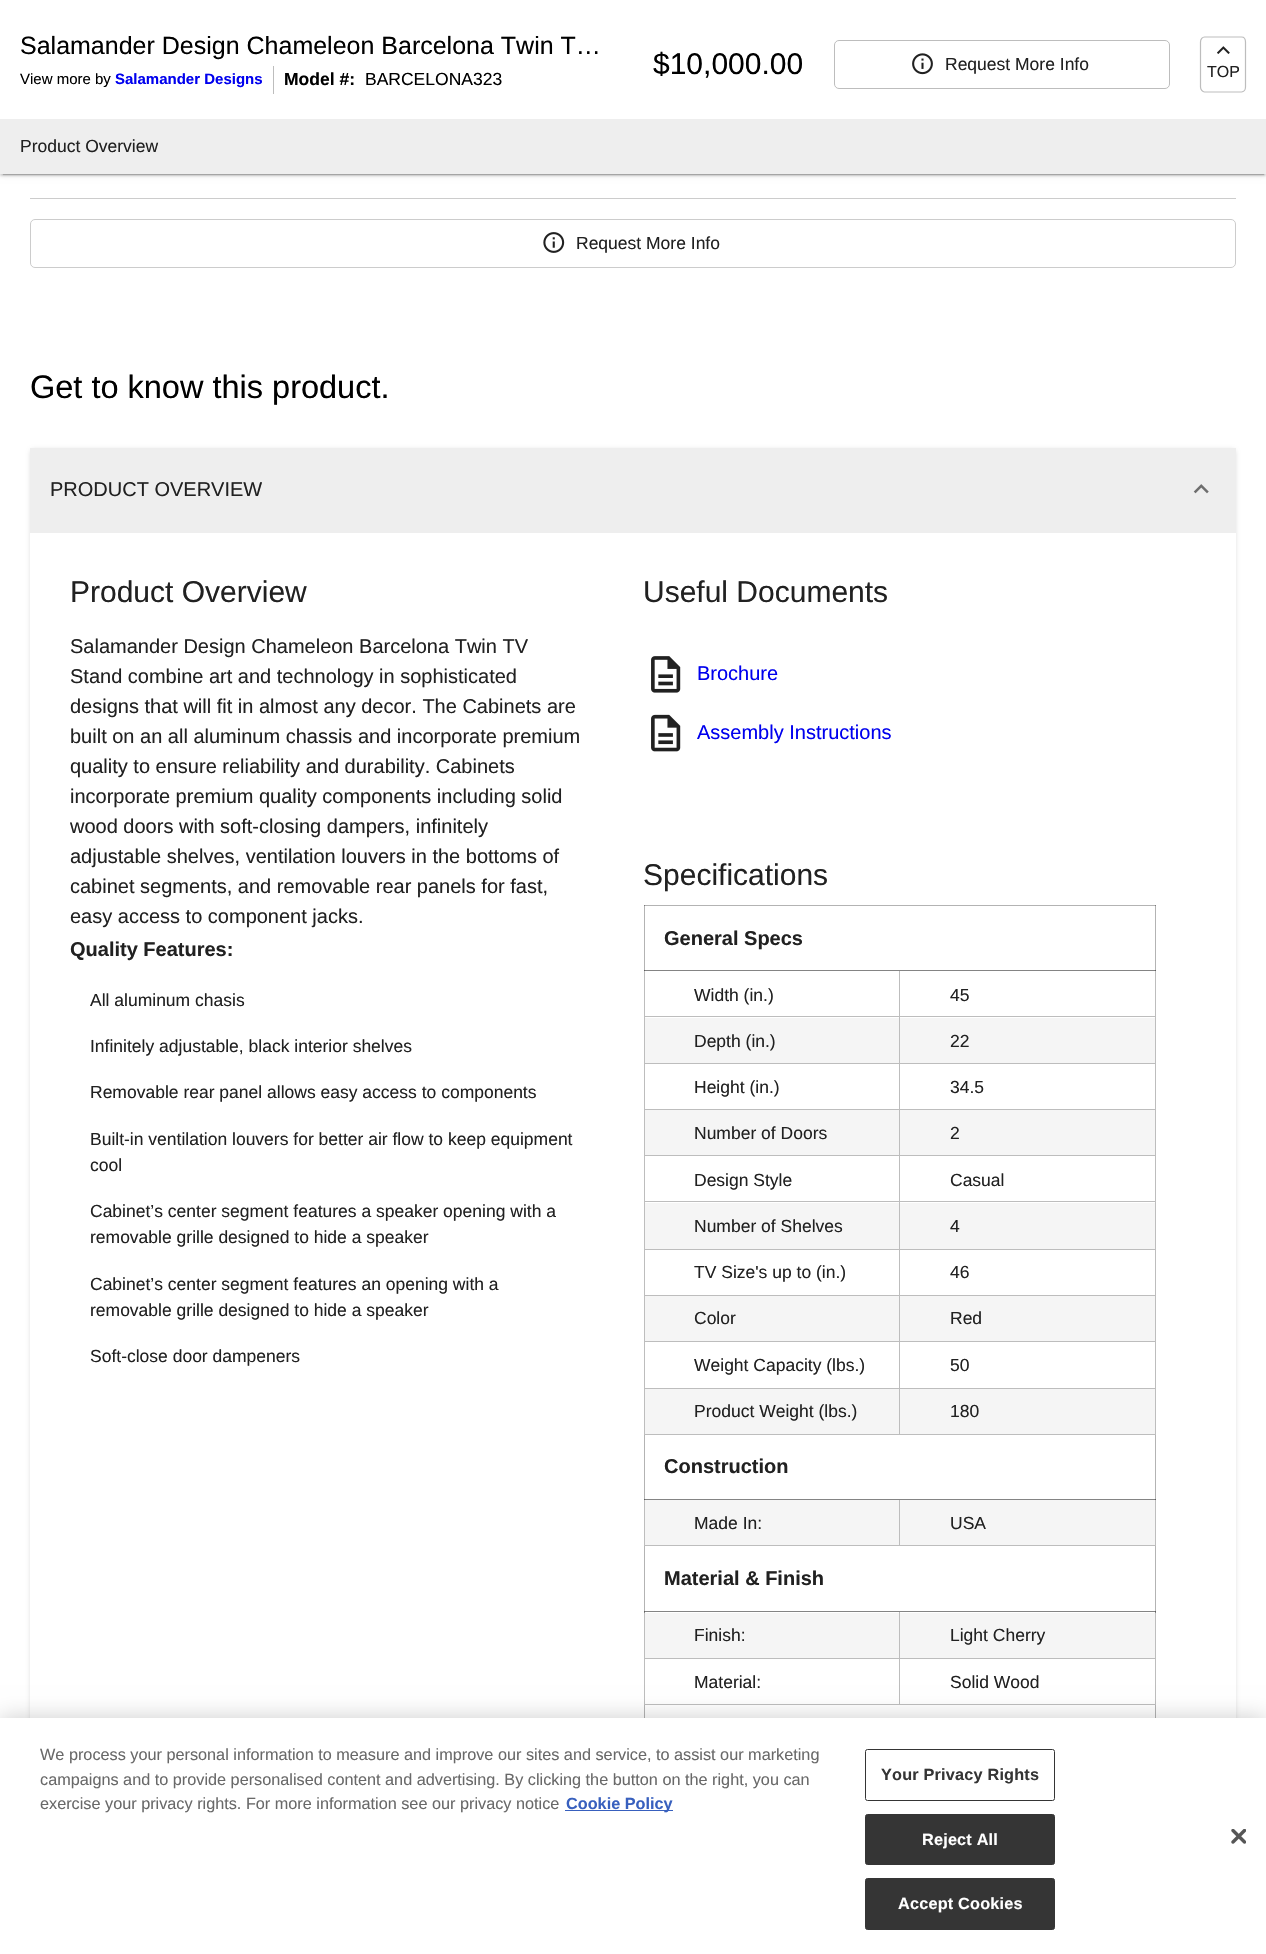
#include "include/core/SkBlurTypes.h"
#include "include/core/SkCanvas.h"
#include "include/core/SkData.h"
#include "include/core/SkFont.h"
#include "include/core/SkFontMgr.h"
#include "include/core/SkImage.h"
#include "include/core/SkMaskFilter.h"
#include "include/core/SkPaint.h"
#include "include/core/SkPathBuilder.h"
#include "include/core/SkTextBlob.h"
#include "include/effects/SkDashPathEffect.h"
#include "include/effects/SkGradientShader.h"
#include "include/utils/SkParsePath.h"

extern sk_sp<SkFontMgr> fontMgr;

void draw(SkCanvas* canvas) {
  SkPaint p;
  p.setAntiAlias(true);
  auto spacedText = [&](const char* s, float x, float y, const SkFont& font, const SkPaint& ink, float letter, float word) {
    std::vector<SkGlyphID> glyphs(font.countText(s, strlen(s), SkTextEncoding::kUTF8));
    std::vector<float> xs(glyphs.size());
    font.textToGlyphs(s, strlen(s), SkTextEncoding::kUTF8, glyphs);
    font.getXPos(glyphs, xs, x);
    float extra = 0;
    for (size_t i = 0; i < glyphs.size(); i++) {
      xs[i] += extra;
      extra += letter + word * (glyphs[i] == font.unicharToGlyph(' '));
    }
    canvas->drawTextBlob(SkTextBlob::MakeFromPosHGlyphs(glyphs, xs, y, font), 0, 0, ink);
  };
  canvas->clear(SK_ColorWHITE);
  p.setColor(SkColorSetARGB(31, 0, 0, 0));
  p.setMaskFilter(SkMaskFilter::MakeBlur(kNormal_SkBlurStyle, 3));
  canvas->drawRect(SkRect::MakeLTRB(0, 1, 1266, 175), p);
  p.setMaskFilter(nullptr);
  p.setColor(SkColorSetARGB(36, 0, 0, 0));
  p.setMaskFilter(SkMaskFilter::MakeBlur(kNormal_SkBlurStyle, 1));
  canvas->drawRect(SkRect::MakeLTRB(0, 3, 1266, 176), p);
  p.setMaskFilter(nullptr);
  p.setColor(SkColorSetARGB(51, 0, 0, 0));
  p.setMaskFilter(SkMaskFilter::MakeBlur(kNormal_SkBlurStyle, 0.5f));
  canvas->drawRect(SkRect::MakeLTRB(3, 6, 1264, 175), p);
  p.setMaskFilter(nullptr);
  p.setColor(SK_ColorWHITE);
  canvas->drawRect(SkRect::MakeLTRB(0, 0, 1266, 119), p);
  p.setColor(SkColorSetRGB(189, 189, 189));
  canvas->drawRect(SkRect::MakeLTRB(273, 66, 274, 94), p);
  p.setStyle(SkPaint::kStroke_Style);
  p.setStrokeWidth(1);
  canvas->drawRoundRect(SkRect::MakeLTRB(834.5f, 40.5f, 1169.5f, 88.5f), 4.5f, 4.5f, p);
  canvas->drawImageRect(SkImages::DeferredFromEncodedData(SkData::MakeFromFileName("images/1.png")), SkRect::MakeLTRB(912, 53, 933, 75), SkSamplingOptions());
  p.setStrokeWidth(1.2f);
  canvas->drawPath(SkPathBuilder().moveTo(1204.5f, 37).lineTo(1241.5f, 37).cubicTo(1244, 37, 1245.5f, 39, 1245.5f, 42).lineTo(1245.5f, 87).cubicTo(1245.5f, 89.5f, 1244, 92, 1241.5f, 92).lineTo(1204.5f, 92).cubicTo(1202.5f, 92, 1200.5f, 89.5f, 1200.5f, 87).lineTo(1200.5f, 42).cubicTo(1200.5f, 39, 1202.5f, 37, 1204.5f, 37).close().detach(), p);
  canvas->drawImageRect(SkImages::DeferredFromEncodedData(SkData::MakeFromFileName("images/2.png")), SkRect::MakeLTRB(1217, 46, 1230, 54), SkSamplingOptions());
  p.setStyle(SkPaint::kFill_Style);
  p.setColor(SkColorSetRGB(238, 238, 238));
  canvas->drawRect(SkRect::MakeLTRB(0, 119, 1266, 174), p);
  p.setColor(SkColorSetRGB(204, 204, 204));
  canvas->drawRect(SkRect::MakeLTRB(30, 198, 1236, 199), p);
  p.setStyle(SkPaint::kStroke_Style);
  p.setStrokeWidth(1);
  canvas->drawRoundRect(SkRect::MakeLTRB(30.5f, 219.5f, 1235.5f, 267.5f), 4.5f, 4.5f, p);
  canvas->drawImageRect(SkImages::DeferredFromEncodedData(SkData::MakeFromFileName("images/3.png")), SkRect::MakeLTRB(543, 232, 565, 253), SkSamplingOptions());
  p.setStyle(SkPaint::kFill_Style);
  p.setColor(SkColorSetARGB(31, 0, 0, 0));
  p.setMaskFilter(SkMaskFilter::MakeBlur(kNormal_SkBlurStyle, 2));
  canvas->drawRoundRect(SkRect::MakeLTRB(30, 449, 1236, 1939), 5, 5, p);
  p.setMaskFilter(nullptr);
  p.setColor(SK_ColorWHITE);
  canvas->drawRect(SkRect::MakeLTRB(30, 533, 1236, 1718), p);
  p.setColor(SkColorSetRGB(179, 179, 179));
  canvas->drawRect(SkRect::MakeLTRB(644, 905, 645, 971), p);
  canvas->drawRect(SkRect::MakeLTRB(1155, 905, 1156, 971), p);
  canvas->drawRect(SkRect::MakeLTRB(644, 1434, 645, 1500), p);
  canvas->drawRect(SkRect::MakeLTRB(1155, 1434, 1156, 1500), p);
  canvas->drawRect(SkRect::MakeLTRB(644, 1545, 645, 1613), p);
  canvas->drawRect(SkRect::MakeLTRB(1155, 1545, 1156, 1613), p);
  canvas->drawRect(SkRect::MakeLTRB(644, 1704, 645, 1718), p);
  canvas->drawRect(SkRect::MakeLTRB(1155, 1704, 1156, 1718), p);
  p.setColor(SkColorSetRGB(238, 238, 238));
  canvas->drawRect(SkRect::MakeLTRB(30, 448, 1236, 533), p);
  canvas->drawImageRect(SkImages::DeferredFromEncodedData(SkData::MakeFromFileName("images/4.png")), SkRect::MakeLTRB(1193, 484, 1209, 494), SkSamplingOptions());
  canvas->drawImageRect(SkImages::DeferredFromEncodedData(SkData::MakeFromFileName("images/5.png")), SkRect::MakeLTRB(651, 656, 681, 693), SkSamplingOptions());
  canvas->drawImageRect(SkImages::DeferredFromEncodedData(SkData::MakeFromFileName("images/6.png")), SkRect::MakeLTRB(651, 714, 681, 752), SkSamplingOptions());
  p.setColor(SkColorSetRGB(179, 179, 179));
  canvas->drawRect(SkRect::MakeLTRB(644, 905, 1156, 906), p);
  p.setColor(SkColorSetRGB(125, 125, 125));
  canvas->drawRect(SkRect::MakeLTRB(644, 905, 645, 906), p);
  canvas->drawRect(SkRect::MakeLTRB(1155, 905, 1156, 906), p);
  p.setColor(SkColorSetRGB(132, 132, 132));
  canvas->drawRect(SkRect::MakeLTRB(899, 970, 1156, 971), p);
  p.setColor(SkColorSetRGB(189, 189, 189));
  canvas->drawRect(SkRect::MakeLTRB(899, 1016, 1156, 1017), p);
  p.setColor(SkColorSetRGB(245, 245, 245));
  canvas->drawRect(SkRect::MakeLTRB(645, 1018, 1155, 1063), p);
  p.setColor(SkColorSetRGB(189, 189, 189));
  canvas->drawRect(SkRect::MakeLTRB(899, 1063, 1156, 1064), p);
  canvas->drawRect(SkRect::MakeLTRB(899, 1109, 1156, 1110), p);
  p.setColor(SkColorSetRGB(245, 245, 245));
  canvas->drawRect(SkRect::MakeLTRB(645, 1110, 1155, 1155), p);
  p.setColor(SkColorSetRGB(189, 189, 189));
  canvas->drawRect(SkRect::MakeLTRB(899, 1155, 1156, 1156), p);
  canvas->drawRect(SkRect::MakeLTRB(899, 1201, 1156, 1202), p);
  p.setColor(SkColorSetRGB(245, 245, 245));
  canvas->drawRect(SkRect::MakeLTRB(645, 1203, 1155, 1249), p);
  p.setColor(SkColorSetRGB(189, 189, 189));
  canvas->drawRect(SkRect::MakeLTRB(899, 1249, 1156, 1250), p);
  canvas->drawRect(SkRect::MakeLTRB(899, 1295, 1156, 1296), p);
  p.setColor(SkColorSetRGB(245, 245, 245));
  canvas->drawRect(SkRect::MakeLTRB(645, 1296, 1155, 1341), p);
  p.setColor(SkColorSetRGB(189, 189, 189));
  canvas->drawRect(SkRect::MakeLTRB(899, 1341, 1156, 1342), p);
  canvas->drawRect(SkRect::MakeLTRB(899, 1388, 1156, 1389), p);
  p.setColor(SkColorSetRGB(245, 245, 245));
  canvas->drawRect(SkRect::MakeLTRB(645, 1389, 1155, 1434), p);
  p.setColor(SkColorSetRGB(189, 189, 189));
  canvas->drawRect(SkRect::MakeLTRB(1155, 1388, 1156, 1435), p);
  canvas->drawRect(SkRect::MakeLTRB(899, 1434, 1156, 1435), p);
  canvas->drawRect(SkRect::MakeLTRB(899, 1388, 900, 1435), p);
  canvas->drawRect(SkRect::MakeLTRB(644, 1388, 900, 1389), p);
  canvas->drawRect(SkRect::MakeLTRB(899, 1341, 900, 1389), p);
  canvas->drawRect(SkRect::MakeLTRB(644, 1341, 900, 1342), p);
  canvas->drawRect(SkRect::MakeLTRB(899, 1295, 900, 1343), p);
  canvas->drawRect(SkRect::MakeLTRB(644, 1295, 900, 1296), p);
  canvas->drawRect(SkRect::MakeLTRB(899, 1249, 900, 1296), p);
  canvas->drawRect(SkRect::MakeLTRB(644, 1249, 900, 1250), p);
  canvas->drawRect(SkRect::MakeLTRB(899, 1201, 900, 1250), p);
  canvas->drawRect(SkRect::MakeLTRB(644, 1201, 900, 1202), p);
  canvas->drawRect(SkRect::MakeLTRB(899, 1155, 900, 1203), p);
  canvas->drawRect(SkRect::MakeLTRB(644, 1155, 900, 1156), p);
  canvas->drawRect(SkRect::MakeLTRB(899, 1109, 900, 1156), p);
  canvas->drawRect(SkRect::MakeLTRB(644, 1109, 900, 1110), p);
  canvas->drawRect(SkRect::MakeLTRB(899, 1063, 900, 1110), p);
  canvas->drawRect(SkRect::MakeLTRB(644, 1063, 900, 1064), p);
  canvas->drawRect(SkRect::MakeLTRB(899, 1016, 900, 1064), p);
  canvas->drawRect(SkRect::MakeLTRB(644, 1016, 900, 1017), p);
  canvas->drawRect(SkRect::MakeLTRB(899, 970, 900, 1018), p);
  p.setColor(SkColorSetRGB(132, 132, 132));
  canvas->drawRect(SkRect::MakeLTRB(644, 970, 900, 971), p);
  p.setColor(SkColorSetRGB(189, 189, 189));
  canvas->drawRect(SkRect::MakeLTRB(644, 1434, 900, 1435), p);
  canvas->drawRect(SkRect::MakeLTRB(644, 1388, 645, 1435), p);
  canvas->drawRect(SkRect::MakeLTRB(644, 1341, 645, 1389), p);
  canvas->drawRect(SkRect::MakeLTRB(644, 1295, 645, 1343), p);
  canvas->drawRect(SkRect::MakeLTRB(644, 1249, 645, 1296), p);
  canvas->drawRect(SkRect::MakeLTRB(644, 1201, 645, 1250), p);
  canvas->drawRect(SkRect::MakeLTRB(644, 1155, 645, 1203), p);
  canvas->drawRect(SkRect::MakeLTRB(644, 1109, 645, 1156), p);
  canvas->drawRect(SkRect::MakeLTRB(644, 1063, 645, 1110), p);
  canvas->drawRect(SkRect::MakeLTRB(644, 1016, 645, 1064), p);
  canvas->drawRect(SkRect::MakeLTRB(644, 970, 645, 1018), p);
  p.setColor(SkColorSetRGB(92, 92, 92));
  canvas->drawRect(SkRect::MakeLTRB(644, 970, 645, 971), p);
  p.setColor(SkColorSetRGB(189, 189, 189));
  canvas->drawRect(SkRect::MakeLTRB(1155, 1341, 1156, 1389), p);
  canvas->drawRect(SkRect::MakeLTRB(1155, 1295, 1156, 1343), p);
  canvas->drawRect(SkRect::MakeLTRB(1155, 1249, 1156, 1296), p);
  canvas->drawRect(SkRect::MakeLTRB(1155, 1201, 1156, 1250), p);
  canvas->drawRect(SkRect::MakeLTRB(1155, 1155, 1156, 1203), p);
  canvas->drawRect(SkRect::MakeLTRB(1155, 1109, 1156, 1156), p);
  canvas->drawRect(SkRect::MakeLTRB(1155, 1063, 1156, 1110), p);
  canvas->drawRect(SkRect::MakeLTRB(1155, 1016, 1156, 1064), p);
  canvas->drawRect(SkRect::MakeLTRB(1155, 970, 1156, 1018), p);
  p.setColor(SkColorSetRGB(92, 92, 92));
  canvas->drawRect(SkRect::MakeLTRB(1155, 970, 1156, 971), p);
  p.setColor(SkColorSetRGB(245, 245, 245));
  canvas->drawRect(SkRect::MakeLTRB(645, 1500, 1155, 1545), p);
  p.setColor(SkColorSetRGB(132, 132, 132));
  canvas->drawRect(SkRect::MakeLTRB(899, 1499, 1156, 1500), p);
  p.setColor(SkColorSetRGB(189, 189, 189));
  canvas->drawRect(SkRect::MakeLTRB(1155, 1499, 1156, 1546), p);
  canvas->drawRect(SkRect::MakeLTRB(899, 1545, 1156, 1546), p);
  canvas->drawRect(SkRect::MakeLTRB(899, 1499, 900, 1546), p);
  p.setColor(SkColorSetRGB(132, 132, 132));
  canvas->drawRect(SkRect::MakeLTRB(644, 1499, 900, 1500), p);
  p.setColor(SkColorSetRGB(189, 189, 189));
  canvas->drawRect(SkRect::MakeLTRB(644, 1545, 900, 1546), p);
  canvas->drawRect(SkRect::MakeLTRB(644, 1499, 645, 1546), p);
  p.setColor(SkColorSetRGB(92, 92, 92));
  canvas->drawRect(SkRect::MakeLTRB(644, 1499, 645, 1500), p);
  canvas->drawRect(SkRect::MakeLTRB(1155, 1499, 1156, 1500), p);
  p.setColor(SkColorSetRGB(245, 245, 245));
  canvas->drawRect(SkRect::MakeLTRB(645, 1613, 1155, 1658), p);
  p.setColor(SkColorSetRGB(132, 132, 132));
  canvas->drawRect(SkRect::MakeLTRB(899, 1611, 1156, 1612), p);
  p.setColor(SkColorSetRGB(189, 189, 189));
  canvas->drawRect(SkRect::MakeLTRB(899, 1658, 1156, 1659), p);
  canvas->drawRect(SkRect::MakeLTRB(1155, 1658, 1156, 1705), p);
  canvas->drawRect(SkRect::MakeLTRB(899, 1704, 1156, 1705), p);
  canvas->drawRect(SkRect::MakeLTRB(899, 1658, 900, 1705), p);
  canvas->drawRect(SkRect::MakeLTRB(644, 1658, 900, 1659), p);
  canvas->drawRect(SkRect::MakeLTRB(899, 1611, 900, 1659), p);
  p.setColor(SkColorSetRGB(132, 132, 132));
  canvas->drawRect(SkRect::MakeLTRB(644, 1611, 900, 1612), p);
  p.setColor(SkColorSetRGB(189, 189, 189));
  canvas->drawRect(SkRect::MakeLTRB(644, 1704, 900, 1705), p);
  canvas->drawRect(SkRect::MakeLTRB(644, 1658, 645, 1705), p);
  canvas->drawRect(SkRect::MakeLTRB(644, 1611, 645, 1659), p);
  p.setColor(SkColorSetRGB(132, 132, 132));
  canvas->drawRect(SkRect::MakeLTRB(644, 1611, 645, 1613), p);
  p.setColor(SkColorSetRGB(92, 92, 92));
  canvas->drawRect(SkRect::MakeLTRB(644, 1611, 645, 1612), p);
  p.setColor(SkColorSetRGB(189, 189, 189));
  canvas->drawRect(SkRect::MakeLTRB(1155, 1611, 1156, 1659), p);
  p.setColor(SkColorSetRGB(132, 132, 132));
  canvas->drawRect(SkRect::MakeLTRB(1155, 1611, 1156, 1613), p);
  p.setColor(SkColorSetRGB(92, 92, 92));
  canvas->drawRect(SkRect::MakeLTRB(1155, 1611, 1156, 1612), p);
  p.setColor(SkColorSetARGB(51, 0, 0, 0));
  p.setMaskFilter(SkMaskFilter::MakeBlur(kNormal_SkBlurStyle, 11));
  canvas->drawRect(SkRect::MakeLTRB(0, 1718, 1266, 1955), p);
  p.setMaskFilter(nullptr);
  p.setColor(SK_ColorWHITE);
  canvas->drawRect(SkRect::MakeLTRB(0, 1718, 1266, 1954), p);
  p.setColor(SkColorSetRGB(56, 96, 190));
  canvas->drawRect(SkRect::MakeLTRB(565, 1810, 673, 1811), p);
  p.setStyle(SkPaint::kStroke_Style);
  p.setColor(SkColorSetRGB(53, 53, 53));
  canvas->drawRoundRect(SkRect::MakeLTRB(865.5f, 1749.5f, 1054.5f, 1800.5f), 2, 2, p);
  p.setStyle(SkPaint::kFill_Style);
  canvas->drawRoundRect(SkRect::MakeLTRB(865.5f, 1814.5f, 1054.5f, 1864.5f), 2, 2, p);
  p.setStyle(SkPaint::kStroke_Style);
  canvas->drawRoundRect(SkRect::MakeLTRB(865.5f, 1814.5f, 1054.5f, 1864.5f), 2, 2, p);
  p.setStyle(SkPaint::kFill_Style);
  canvas->drawRoundRect(SkRect::MakeLTRB(865.5f, 1878.5f, 1054.5f, 1929.5f), 2, 2, p);
  p.setStyle(SkPaint::kStroke_Style);
  canvas->drawRoundRect(SkRect::MakeLTRB(865.5f, 1878.5f, 1054.5f, 1929.5f), 2, 2, p);
  canvas->drawImageRect(SkImages::DeferredFromEncodedData(SkData::MakeFromFileName("images/7.png")), SkRect::MakeLTRB(1231, 1829, 1246, 1844), SkSamplingOptions());
  SkFont font1(fontMgr->matchFamilyStyle("Liberation Sans", SkFontStyle::Normal()), 25);
  font1.setSubpixel(true);
  p.setStyle(SkPaint::kFill_Style);
  p.setColor(SK_ColorBLACK);
  canvas->drawString("Salamander Design Chameleon Barcelona Twin T…", 20, 54, font1, p);
  SkFont font2(fontMgr->matchFamilyStyle("Liberation Sans", SkFontStyle::Normal()), 15);
  font2.setSubpixel(true);
  canvas->drawString("View more by", 20, 84, font2, p);
  SkFont font3(fontMgr->matchFamilyStyle("Liberation Sans", SkFontStyle::Bold()), 15);
  font3.setSubpixel(true);
  p.setColor(SkColorSetRGB(0, 0, 238));
  canvas->drawString("Salamander Designs", 115, 84, font3, p);
  SkFont font4(fontMgr->matchFamilyStyle("Liberation Sans", SkFontStyle::Bold()), 17.5f);
  font4.setSubpixel(true);
  p.setColor(SK_ColorBLACK);
  canvas->drawString("Model #:", 284, 85, font4, p);
  SkFont font5(fontMgr->matchFamilyStyle("Liberation Sans", SkFontStyle::Normal()), 17.5f);
  font5.setSubpixel(true);
  canvas->drawString("BARCELONA323", 365, 85, font5, p);
  SkFont font6(fontMgr->matchFamilyStyle("Liberation Sans", SkFontStyle::Normal()), 30);
  font6.setSubpixel(true);
  canvas->drawString("$10,000.00", 653, 74, font6, p);
  p.setColor(SkColorSetRGB(33, 33, 33));
  canvas->drawString("Request More Info", 945, 70, font5, p);
  SkFont font7(fontMgr->matchFamilyStyle("Liberation Sans", SkFontStyle::Normal()), 16);
  font7.setSubpixel(true);
  canvas->drawString("TOP", 1207, 77, font7, p);
  canvas->drawString("Product Overview", 20, 152, font5, p);
  canvas->drawString("Request More Info", 576, 249, font5, p);
  SkFont font8(fontMgr->matchFamilyStyle("Liberation Sans", SkFontStyle::Normal()), 32.5f);
  font8.setSubpixel(true);
  p.setColor(SK_ColorBLACK);
  canvas->drawString("Get to know this product.", 30, 398, font8, p);
  SkFont font9(fontMgr->matchFamilyStyle("Liberation Sans", SkFontStyle::Normal()), 20);
  font9.setSubpixel(true);
  p.setColor(SkColorSetRGB(33, 33, 33));
  canvas->drawString("PRODUCT OVERVIEW", 50, 496, font9, p);
  canvas->drawString("Product Overview", 70, 602, font6, p);
  canvas->drawString("Salamander Design Chameleon Barcelona Twin TV", 70, 653, font9, p);
  canvas->drawString("Stand combine art and technology in sophisticated", 70, 683, font9, p);
  canvas->drawString("designs that will fit in almost any decor. The Cabinets are", 70, 713, font9, p);
  canvas->drawString("built on an all aluminum chassis and incorporate premium", 70, 743, font9, p);
  canvas->drawString("quality to ensure reliability and durability. Cabinets", 70, 773, font9, p);
  canvas->drawString("incorporate premium quality components including solid", 70, 803, font9, p);
  canvas->drawString("wood doors with soft-closing dampers, infinitely", 70, 833, font9, p);
  canvas->drawString("adjustable shelves, ventilation louvers in the bottoms of", 70, 863, font9, p);
  canvas->drawString("cabinet segments, and removable rear panels for fast,", 70, 893, font9, p);
  canvas->drawString("easy access to component jacks.", 70, 923, font9, p);
  SkFont font10(fontMgr->matchFamilyStyle("Liberation Sans", SkFontStyle::Bold()), 20);
  font10.setSubpixel(true);
  canvas->drawString("Quality Features:", 70, 956, font10, p);
  canvas->drawString("All aluminum chasis", 90, 1006, font5, p);
  canvas->drawString("Infinitely adjustable, black interior shelves", 90, 1052, font5, p);
  canvas->drawString("Removable rear panel allows easy access to components", 90, 1098, font5, p);
  canvas->drawString("Built-in ventilation louvers for better air flow to keep equipment", 90, 1145, font5, p);
  canvas->drawString("cool", 90, 1171, font5, p);
  canvas->drawString("Cabinet’s center segment features a speaker opening with a", 90, 1217, font5, p);
  canvas->drawString("removable grille designed to hide a speaker", 90, 1243, font5, p);
  canvas->drawString("Cabinet’s center segment features an opening with a", 90, 1290, font5, p);
  canvas->drawString("removable grille designed to hide a speaker", 90, 1316, font5, p);
  canvas->drawString("Soft-close door dampeners", 90, 1362, font5, p);
  canvas->drawString("Useful Documents", 643, 602, font6, p);
  p.setColor(SkColorSetRGB(0, 0, 238));
  canvas->drawString("Brochure", 697, 680, font9, p);
  canvas->drawString("Assembly Instructions", 697, 739, font9, p);
  p.setColor(SkColorSetRGB(33, 33, 33));
  canvas->drawString("Specifications", 643, 885, font6, p);
  canvas->drawString("General Specs", 664, 945, font10, p);
  canvas->drawString("Width (in.)", 694, 1001, font5, p);
  canvas->drawString("45", 950, 1001, font5, p);
  canvas->drawString("Depth (in.)", 694, 1047, font5, p);
  canvas->drawString("22", 950, 1047, font5, p);
  canvas->drawString("Height (in.)", 694, 1093, font5, p);
  canvas->drawString("34.5", 950, 1093, font5, p);
  canvas->drawString("Number of Doors", 694, 1139, font5, p);
  canvas->drawString("2", 950, 1139, font5, p);
  canvas->drawString("Design Style", 694, 1186, font5, p);
  canvas->drawString("Casual", 950, 1186, font5, p);
  canvas->drawString("Number of Shelves", 694, 1232, font5, p);
  canvas->drawString("4", 950, 1232, font5, p);
  canvas->drawString("TV Size's up to (in.)", 694, 1278, font5, p);
  canvas->drawString("46", 950, 1278, font5, p);
  canvas->drawString("Color", 694, 1324, font5, p);
  canvas->drawString("Red", 950, 1324, font5, p);
  canvas->drawString("Weight Capacity (lbs.)", 694, 1371, font5, p);
  canvas->drawString("50", 950, 1371, font5, p);
  canvas->drawString("Product Weight (lbs.)", 694, 1417, font5, p);
  canvas->drawString("180", 950, 1417, font5, p);
  canvas->drawString("Construction", 664, 1473, font10, p);
  canvas->drawString("Made In:", 694, 1529, font5, p);
  canvas->drawString("USA", 950, 1529, font5, p);
  canvas->drawString("Material & Finish", 664, 1585, font10, p);
  canvas->drawString("Finish:", 694, 1641, font5, p);
  canvas->drawString("Light Cherry", 950, 1641, font5, p);
  canvas->drawString("Material:", 694, 1688, font5, p);
  canvas->drawString("Solid Wood", 950, 1688, font5, p);
  SkFont font11(fontMgr->matchFamilyStyle("Liberation Sans", SkFontStyle::Normal()), 16.25f);
  font11.setSubpixel(true);
  p.setColor(SkColorSetRGB(105, 105, 105));
  canvas->drawString("We process your personal information to measure and improve our sites and service, to assist our marketing", 40, 1760, font11, p);
  canvas->drawString("campaigns and to provide personalised content and advertising. By clicking the button on the right, you can", 40, 1785, font11, p);
  canvas->drawString("exercise your privacy rights. For more information see our privacy notice", 40, 1809, font11, p);
  SkFont font12(fontMgr->matchFamilyStyle("Liberation Sans", SkFontStyle::Bold()), 16.25f);
  font12.setSubpixel(true);
  p.setColor(SkColorSetRGB(56, 96, 190));
  canvas->drawString("Cookie Policy", 566, 1809, font12, p);
  p.setColor(SkColorSetRGB(53, 53, 53));
  spacedText("Your Privacy Rights", 881, 1780, font12, p, 0.2f, 0);
  p.setColor(SK_ColorWHITE);
  spacedText("Reject All", 922, 1845, font12, p, 0.2f, 0);
  spacedText("Accept Cookies", 898, 1909, font12, p, 0.2f, 0);
}
